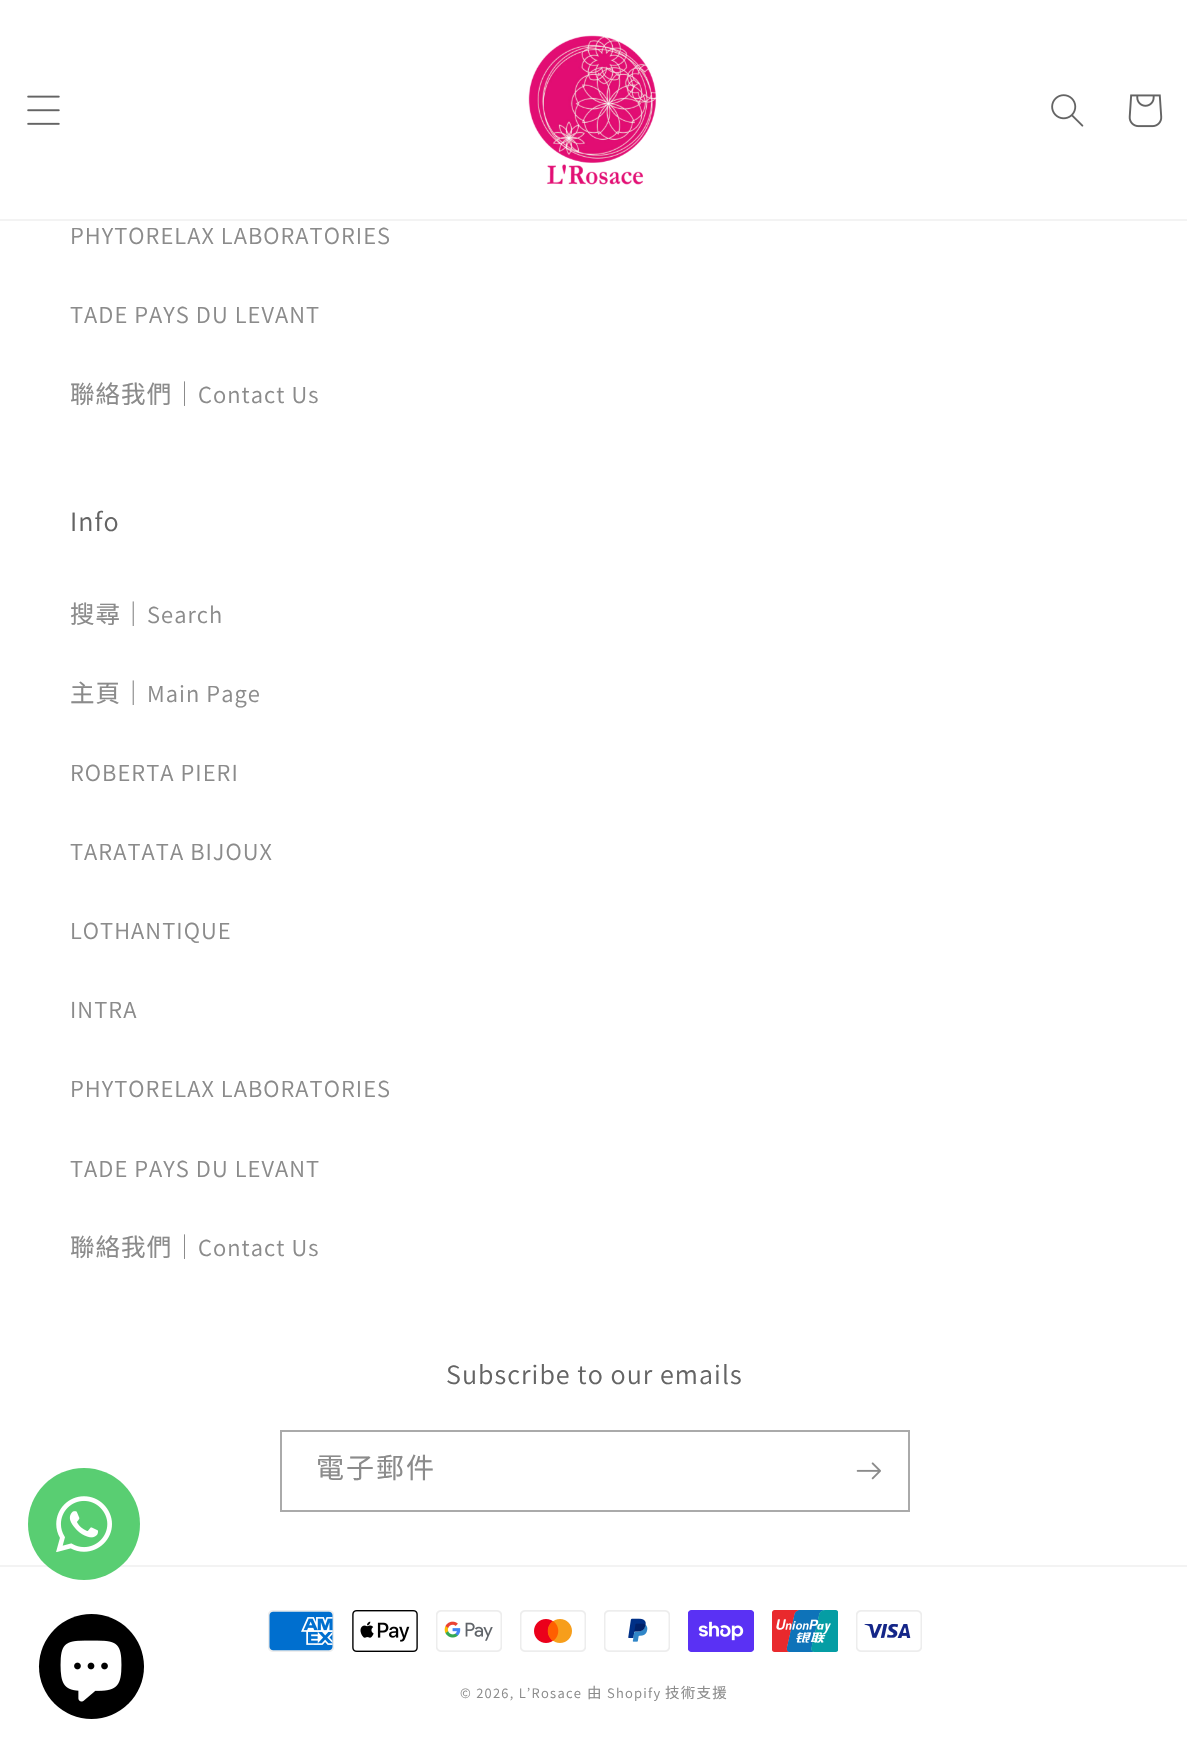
#include "include/core/SkBlurTypes.h"
#include "include/core/SkCanvas.h"
#include "include/core/SkData.h"
#include "include/core/SkFont.h"
#include "include/core/SkFontMgr.h"
#include "include/core/SkImage.h"
#include "include/core/SkMaskFilter.h"
#include "include/core/SkPaint.h"
#include "include/core/SkPathBuilder.h"
#include "include/core/SkTextBlob.h"
#include "include/effects/SkDashPathEffect.h"
#include "include/effects/SkGradientShader.h"
#include "include/utils/SkParsePath.h"

extern sk_sp<SkFontMgr> fontMgr;

void draw(SkCanvas* canvas) {
  SkPaint p;
  p.setAntiAlias(true);
  auto spacedText = [&](const char* s, float x, float y, const SkFont& font, const SkPaint& ink, float letter, float word) {
    std::vector<SkGlyphID> glyphs(font.countText(s, strlen(s), SkTextEncoding::kUTF8));
    std::vector<float> xs(glyphs.size());
    font.textToGlyphs(s, strlen(s), SkTextEncoding::kUTF8, glyphs);
    font.getXPos(glyphs, xs, x);
    float extra = 0;
    for (size_t i = 0; i < glyphs.size(); i++) {
      xs[i] += extra;
      extra += letter + word * (glyphs[i] == font.unicharToGlyph(' '));
    }
    canvas->drawTextBlob(SkTextBlob::MakeFromPosHGlyphs(glyphs, xs, y, font), 0, 0, ink);
  };
  canvas->clear(SK_ColorWHITE);
  p.setColor(SkColorSetRGB(243, 243, 243));
  canvas->drawRect(SkRect::MakeLTRB(0, 219, 1187, 221), p);
  canvas->drawImageRect(SkImages::DeferredFromEncodedData(SkData::MakeFromFileName("images/1.png")), SkRect::MakeLTRB(27, 95, 60, 125), SkSamplingOptions());
  canvas->drawImageRect(SkImages::DeferredFromEncodedData(SkData::MakeFromFileName("images/2.png")), SkRect::MakeLTRB(528, 35, 657, 185), SkSamplingOptions());
  canvas->drawImageRect(SkImages::DeferredFromEncodedData(SkData::MakeFromFileName("images/3.png")), SkRect::MakeLTRB(1051, 94, 1084, 127), SkSamplingOptions());
  canvas->drawImageRect(SkImages::DeferredFromEncodedData(SkData::MakeFromFileName("images/4.png")), SkRect::MakeLTRB(1128, 94, 1163, 128), SkSamplingOptions());
  p.setStyle(SkPaint::kStroke_Style);
  p.setStrokeWidth(2);
  p.setColor(SkColorSetRGB(170, 170, 170));
  canvas->drawRect(SkRect::MakeLTRB(281, 1431, 909, 1511), p);
  canvas->drawImageRect(SkImages::DeferredFromEncodedData(SkData::MakeFromFileName("images/5.png")), SkRect::MakeLTRB(856, 1462, 881, 1480), SkSamplingOptions());
  p.setStyle(SkPaint::kFill_Style);
  p.setColor(SkColorSetRGB(243, 243, 243));
  canvas->drawRect(SkRect::MakeLTRB(0, 1565, 1187, 1567), p);
  canvas->drawImageRect(SkImages::DeferredFromEncodedData(SkData::MakeFromFileName("images/6.png")), SkRect::MakeLTRB(268, 1610, 334, 1652), SkSamplingOptions());
  canvas->drawImageRect(SkImages::DeferredFromEncodedData(SkData::MakeFromFileName("images/7.png")), SkRect::MakeLTRB(352, 1610, 418, 1652), SkSamplingOptions());
  canvas->drawImageRect(SkImages::DeferredFromEncodedData(SkData::MakeFromFileName("images/8.png")), SkRect::MakeLTRB(436, 1610, 502, 1652), SkSamplingOptions());
  canvas->drawImageRect(SkImages::DeferredFromEncodedData(SkData::MakeFromFileName("images/9.png")), SkRect::MakeLTRB(520, 1610, 586, 1652), SkSamplingOptions());
  canvas->drawImageRect(SkImages::DeferredFromEncodedData(SkData::MakeFromFileName("images/10.png")), SkRect::MakeLTRB(604, 1610, 670, 1652), SkSamplingOptions());
  canvas->drawImageRect(SkImages::DeferredFromEncodedData(SkData::MakeFromFileName("images/11.png")), SkRect::MakeLTRB(688, 1610, 754, 1652), SkSamplingOptions());
  canvas->drawImageRect(SkImages::DeferredFromEncodedData(SkData::MakeFromFileName("images/12.png")), SkRect::MakeLTRB(772, 1610, 838, 1652), SkSamplingOptions());
  canvas->drawImageRect(SkImages::DeferredFromEncodedData(SkData::MakeFromFileName("images/13.png")), SkRect::MakeLTRB(856, 1610, 922, 1652), SkSamplingOptions());
  p.setColor(SkColorSetRGB(89, 206, 114));
  canvas->drawCircle(84, 1524, 56, p);
  canvas->drawImageRect(SkImages::DeferredFromEncodedData(SkData::MakeFromFileName("images/14.png")), SkRect::MakeLTRB(56, 1496, 112, 1552), SkSamplingOptions());
  p.setColor(SK_ColorBLACK);
  canvas->drawCircle(91.5f, 1666.5f, 52.5f, p);
  canvas->drawImageRect(SkImages::DeferredFromEncodedData(SkData::MakeFromFileName("images/15.png")), SkRect::MakeLTRB(60, 1640, 122, 1702), SkSamplingOptions());
  SkFont font1(fontMgr->matchFamilyStyle("Assistant", SkFontStyle::Normal()), 24.5f);
  font1.setSubpixel(true);
  p.setColor(SkColorSetRGB(139, 139, 139));
  spacedText("PHYTORELAX LABORATORIES", 70, 244, font1, p, 1.05f, 0);
  spacedText("TADE PAYS DU LEVANT", 70, 323, font1, p, 1.05f, 0);
  SkFont font2(fontMgr->matchFamilyStyle("Noto Sans CJK TC", SkFontStyle::Normal()), 24.5f);
  font2.setSubpixel(true);
  spacedText("聯絡我們｜", 70, 403, font2, p, 1.05f, 0);
  spacedText("Contact Us", 198, 403, font1, p, 1.05f, 0);
  SkFont font3(fontMgr->matchFamilyStyle("Assistant", SkFontStyle::Normal()), 28);
  font3.setSubpixel(true);
  p.setColor(SkColorSetRGB(100, 100, 100));
  spacedText("Info", 70, 531, font3, p, 1.05f, 0);
  p.setColor(SkColorSetRGB(139, 139, 139));
  spacedText("搜尋｜", 70, 623, font2, p, 1.05f, 0);
  spacedText("Search", 147, 623, font1, p, 1.05f, 0);
  spacedText("主頁｜", 70, 702, font2, p, 1.05f, 0);
  spacedText("Main Page", 147, 702, font1, p, 1.05f, 0);
  spacedText("ROBERTA PIERI", 70, 781, font1, p, 1.05f, 0);
  spacedText("TARATATA BIJOUX", 70, 860, font1, p, 1.05f, 0);
  spacedText("LOTHANTIQUE", 70, 939, font1, p, 1.05f, 0);
  spacedText("INTRA", 70, 1018, font1, p, 1.05f, 0);
  spacedText("PHYTORELAX LABORATORIES", 70, 1097, font1, p, 1.05f, 0);
  spacedText("TADE PAYS DU LEVANT", 70, 1177, font1, p, 1.05f, 0);
  spacedText("聯絡我們｜", 70, 1256, font2, p, 1.05f, 0);
  spacedText("Contact Us", 198, 1256, font1, p, 1.05f, 0);
  p.setColor(SkColorSetRGB(100, 100, 100));
  spacedText("Subscribe to our emails", 446, 1384, font3, p, 1.05f, 0);
  SkFont font4(fontMgr->matchFamilyStyle("Noto Sans CJK TC", SkFontStyle::Normal()), 28);
  font4.setSubpixel(true);
  p.setColor(SkColorSetRGB(139, 139, 139));
  spacedText("電子郵件", 316, 1478, font4, p, 2, 0);
  SkFont font5(fontMgr->matchFamilyStyle("Assistant", SkFontStyle::Normal()), 14.5f);
  font5.setSubpixel(true);
  spacedText("© 2026, L’Rosace", 460, 1698, font5, p, 1.25f, 0);
  SkFont font6(fontMgr->matchFamilyStyle("Noto Sans CJK TC", SkFontStyle::Normal()), 14.5f);
  font6.setSubpixel(true);
  spacedText("由", 587, 1698, font6, p, 1.25f, 0);
  spacedText("Shopify", 607, 1698, font5, p, 1.25f, 0);
  spacedText("技術支援", 665, 1698, font6, p, 1.25f, 0);
}
